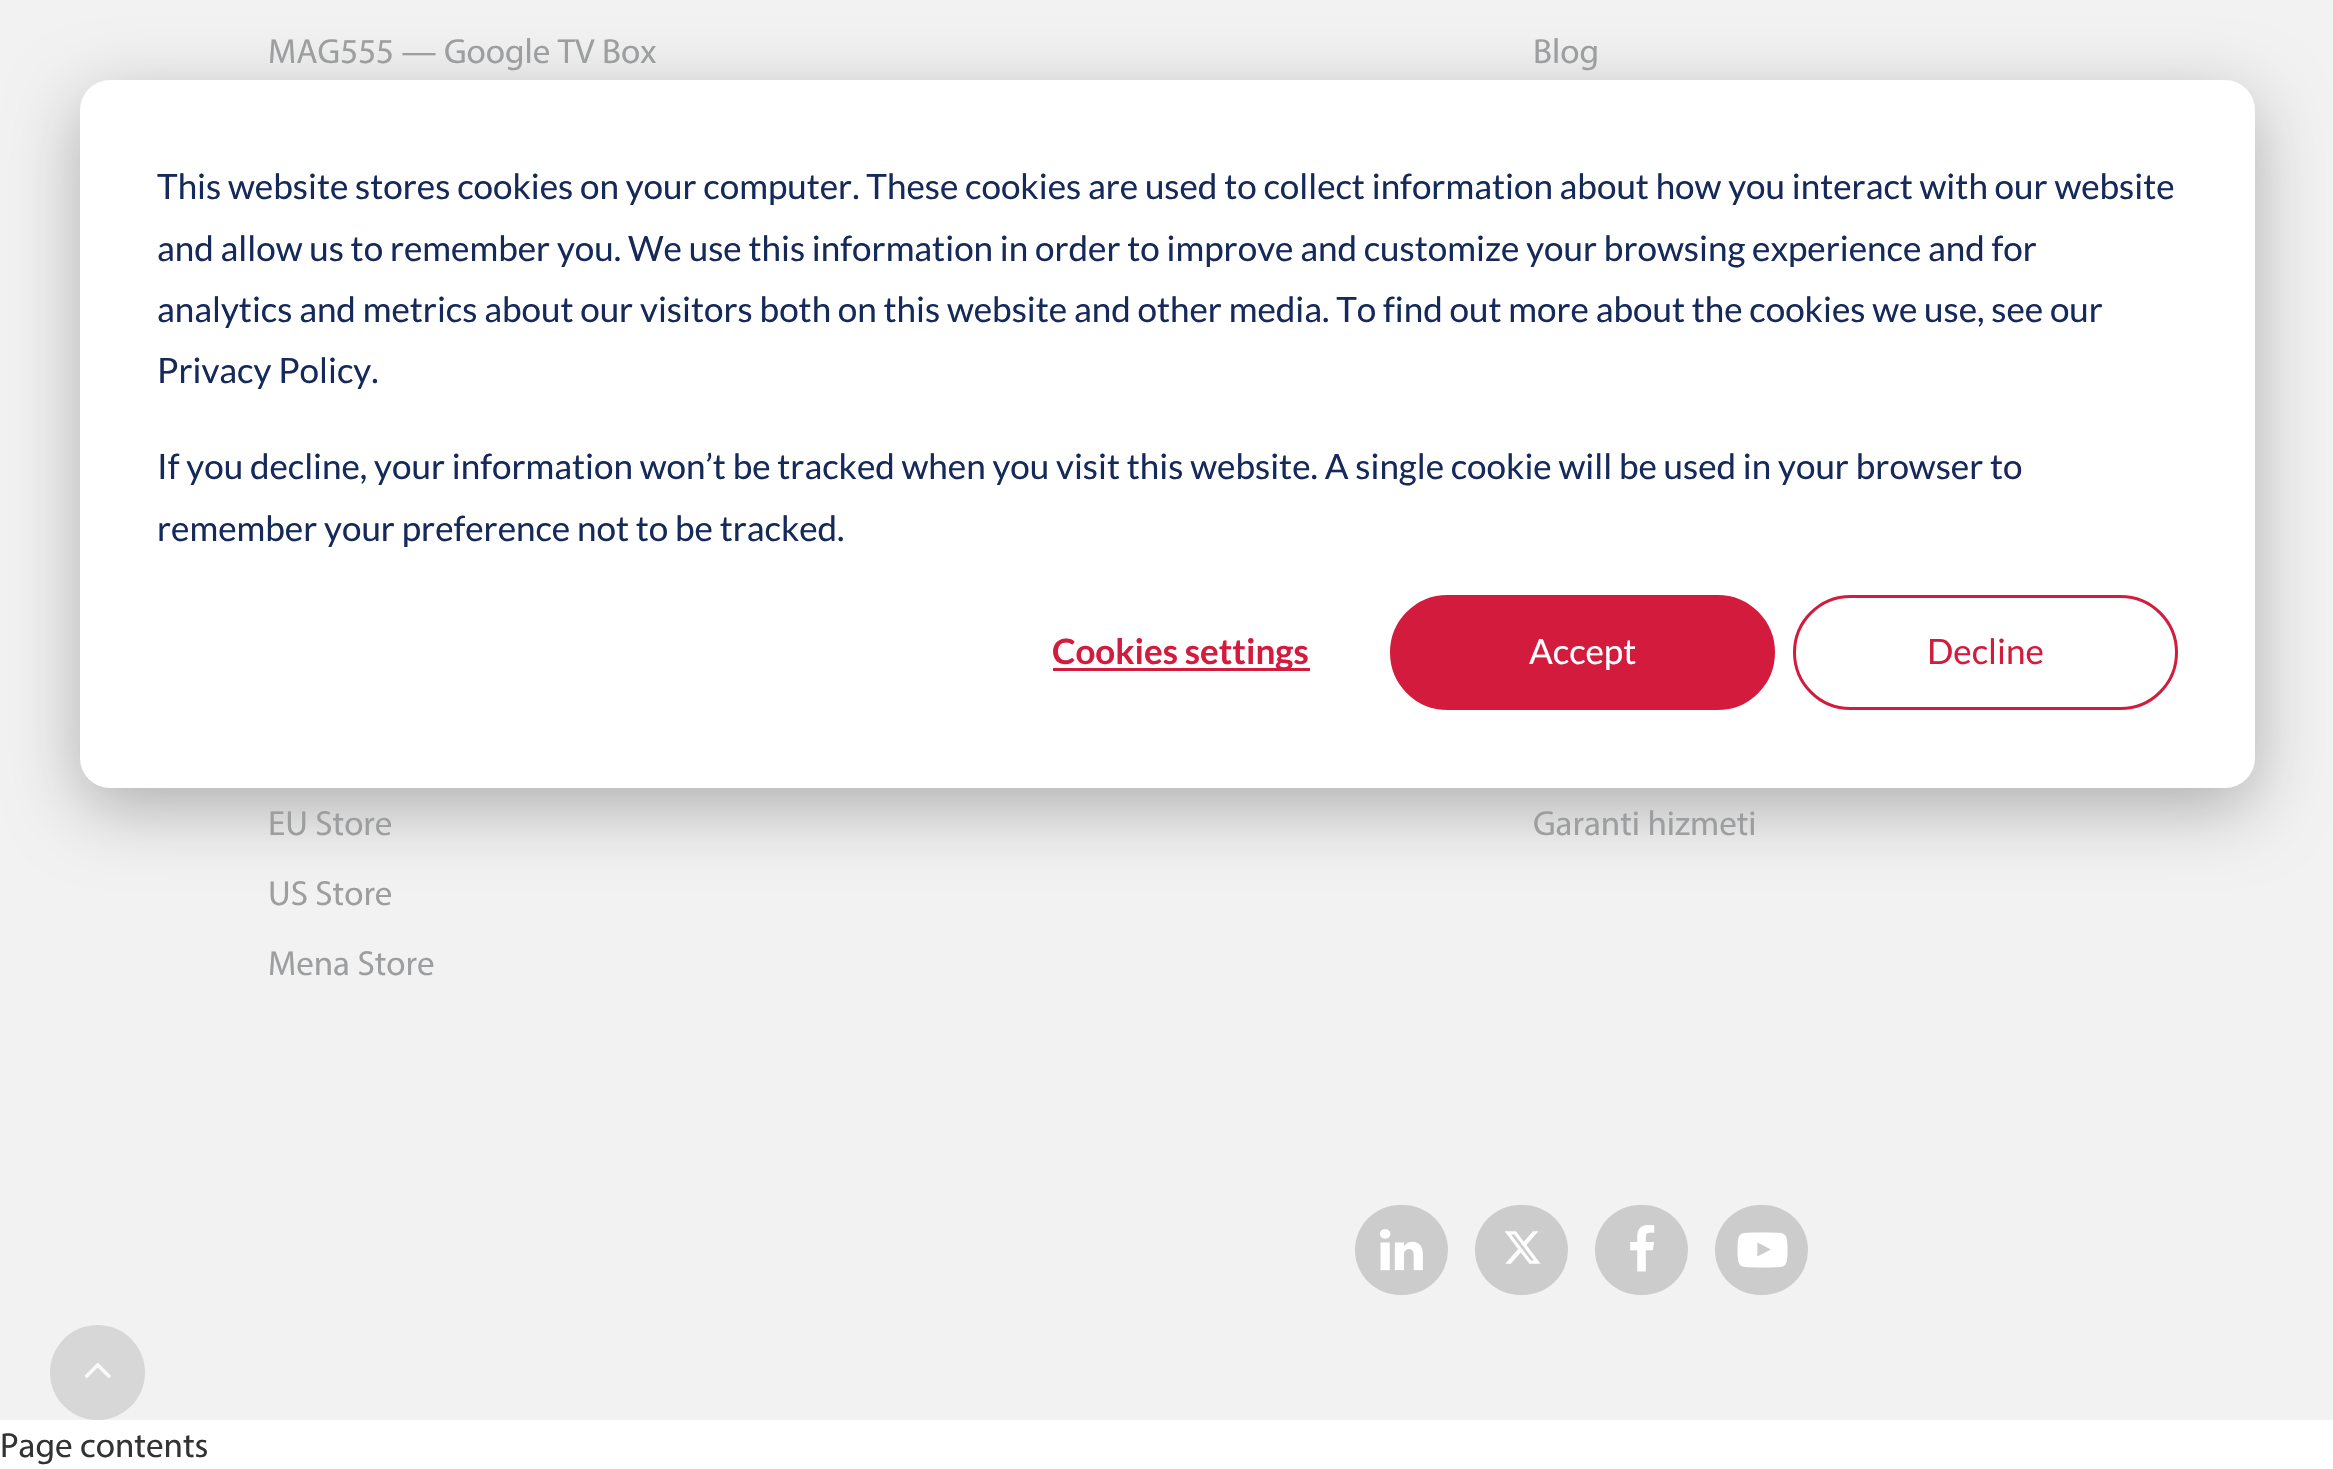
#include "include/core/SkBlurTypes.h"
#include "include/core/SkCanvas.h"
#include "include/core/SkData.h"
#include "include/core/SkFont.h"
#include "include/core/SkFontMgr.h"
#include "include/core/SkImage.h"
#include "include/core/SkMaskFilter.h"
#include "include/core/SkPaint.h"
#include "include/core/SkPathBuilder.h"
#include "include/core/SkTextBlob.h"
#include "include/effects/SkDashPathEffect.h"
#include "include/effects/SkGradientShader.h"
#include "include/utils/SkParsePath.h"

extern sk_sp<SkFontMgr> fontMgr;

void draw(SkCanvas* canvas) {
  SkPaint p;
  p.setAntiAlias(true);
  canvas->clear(SK_ColorWHITE);
  p.setColor(SkColorSetRGB(242, 242, 242));
  canvas->drawRect(SkRect::MakeLTRB(0, 0, 2333, 1420), p);
  p.setColor(SkColorSetRGB(204, 204, 204));
  canvas->drawRoundRect(SkRect::MakeLTRB(1355, 1205, 1448, 1295), 45, 45, p);
  canvas->drawImageRect(SkImages::DeferredFromEncodedData(SkData::MakeFromFileName("images/1.png")), SkRect::MakeLTRB(1380, 1229, 1423, 1271), SkSamplingOptions());
  canvas->drawRoundRect(SkRect::MakeLTRB(1475, 1205, 1568, 1295), 45, 45, p);
  canvas->drawImageRect(SkImages::DeferredFromEncodedData(SkData::MakeFromFileName("images/2.png")), SkRect::MakeLTRB(1504, 1231, 1541, 1264), SkSamplingOptions());
  canvas->drawRoundRect(SkRect::MakeLTRB(1595, 1205, 1688, 1295), 45, 45, p);
  canvas->drawImageRect(SkImages::DeferredFromEncodedData(SkData::MakeFromFileName("images/3.png")), SkRect::MakeLTRB(1630, 1225, 1655, 1272), SkSamplingOptions());
  canvas->drawRoundRect(SkRect::MakeLTRB(1715, 1205, 1808, 1295), 45, 45, p);
  canvas->drawImageRect(SkImages::DeferredFromEncodedData(SkData::MakeFromFileName("images/4.png")), SkRect::MakeLTRB(1737, 1232, 1788, 1268), SkSamplingOptions());
  p.setColor(SkColorSetARGB(71, 0, 0, 0));
  p.setMaskFilter(SkMaskFilter::MakeBlur(kNormal_SkBlurStyle, 35));
  canvas->drawRoundRect(SkRect::MakeLTRB(80, 100, 2255, 808), 30, 30, p);
  p.setMaskFilter(nullptr);
  p.setColor(SK_ColorWHITE);
  canvas->drawRoundRect(SkRect::MakeLTRB(80, 80, 2255, 788), 30, 30, p);
  p.setColor(SkColorSetRGB(211, 28, 61));
  canvas->drawRect(SkRect::MakeLTRB(1053, 668, 1310, 671), p);
  canvas->drawRoundRect(SkRect::MakeLTRB(1391.5f, 596.5f, 1773.5f, 708.5f), 56, 56, p);
  p.setStyle(SkPaint::kStroke_Style);
  p.setStrokeWidth(3);
  canvas->drawRoundRect(SkRect::MakeLTRB(1391.5f, 596.5f, 1773.5f, 708.5f), 56, 56, p);
  canvas->drawRoundRect(SkRect::MakeLTRB(1794.5f, 596.5f, 2176.5f, 708.5f), 56, 56, p);
  p.setStyle(SkPaint::kFill_Style);
  p.setColor(SkColorSetRGB(215, 215, 215));
  canvas->drawCircle(97.5f, 1372.5f, 47.5f, p);
  canvas->drawImageRect(SkImages::DeferredFromEncodedData(SkData::MakeFromFileName("images/5.png")), SkRect::MakeLTRB(84, 1363, 111, 1378), SkSamplingOptions());
  SkFont font1(fontMgr->matchFamilyStyle("Myriad", SkFontStyle::Normal()), 35);
  font1.setSubpixel(true);
  p.setColor(SkColorSetRGB(156, 158, 159));
  canvas->drawString("MAG555 — Google TV Box", 268, 63, font1, p);
  canvas->drawString("EU Store", 268, 835, font1, p);
  canvas->drawString("US Store", 268, 905, font1, p);
  canvas->drawString("Mena Store", 268, 975, font1, p);
  canvas->drawString("Blog", 1533, 63, font1, p);
  canvas->drawString("Garanti hizmeti", 1533, 835, font1, p);
  SkFont font2(fontMgr->matchFamilyStyle("Lato", SkFontStyle::Normal()), 35);
  font2.setSubpixel(true);
  p.setColor(SkColorSetRGB(21, 41, 90));
  canvas->drawString("This website stores cookies on your computer. These cookies are used to collect information about how you interact with our website", 157, 199, font2, p);
  canvas->drawString("and allow us to remember you. We use this information in order to improve and customize your browsing experience and for", 157, 261, font2, p);
  canvas->drawString("analytics and metrics about our visitors both on this website and other media. To find out more about the cookies we use, see our", 157, 322, font2, p);
  canvas->drawString("Privacy Policy.", 157, 383, font2, p);
  canvas->drawString("If you decline, your information won’t be tracked when you visit this website. A single cookie will be used in your browser to", 157, 479, font2, p);
  canvas->drawString("remember your preference not to be tracked.", 157, 541, font2, p);
  SkFont font3(fontMgr->matchFamilyStyle("Lato", SkFontStyle::Bold()), 35);
  font3.setSubpixel(true);
  p.setColor(SkColorSetRGB(211, 28, 61));
  canvas->drawString("Cookies settings", 1052, 664, font3, p);
  p.setColor(SK_ColorWHITE);
  canvas->drawString("Accept", 1529, 664, font2, p);
  p.setColor(SkColorSetRGB(211, 28, 61));
  canvas->drawString("Decline", 1927, 664, font2, p);
  p.setColor(SkColorSetRGB(51, 51, 51));
  canvas->drawString("Page contents", 0, 1457, font1, p);
}
